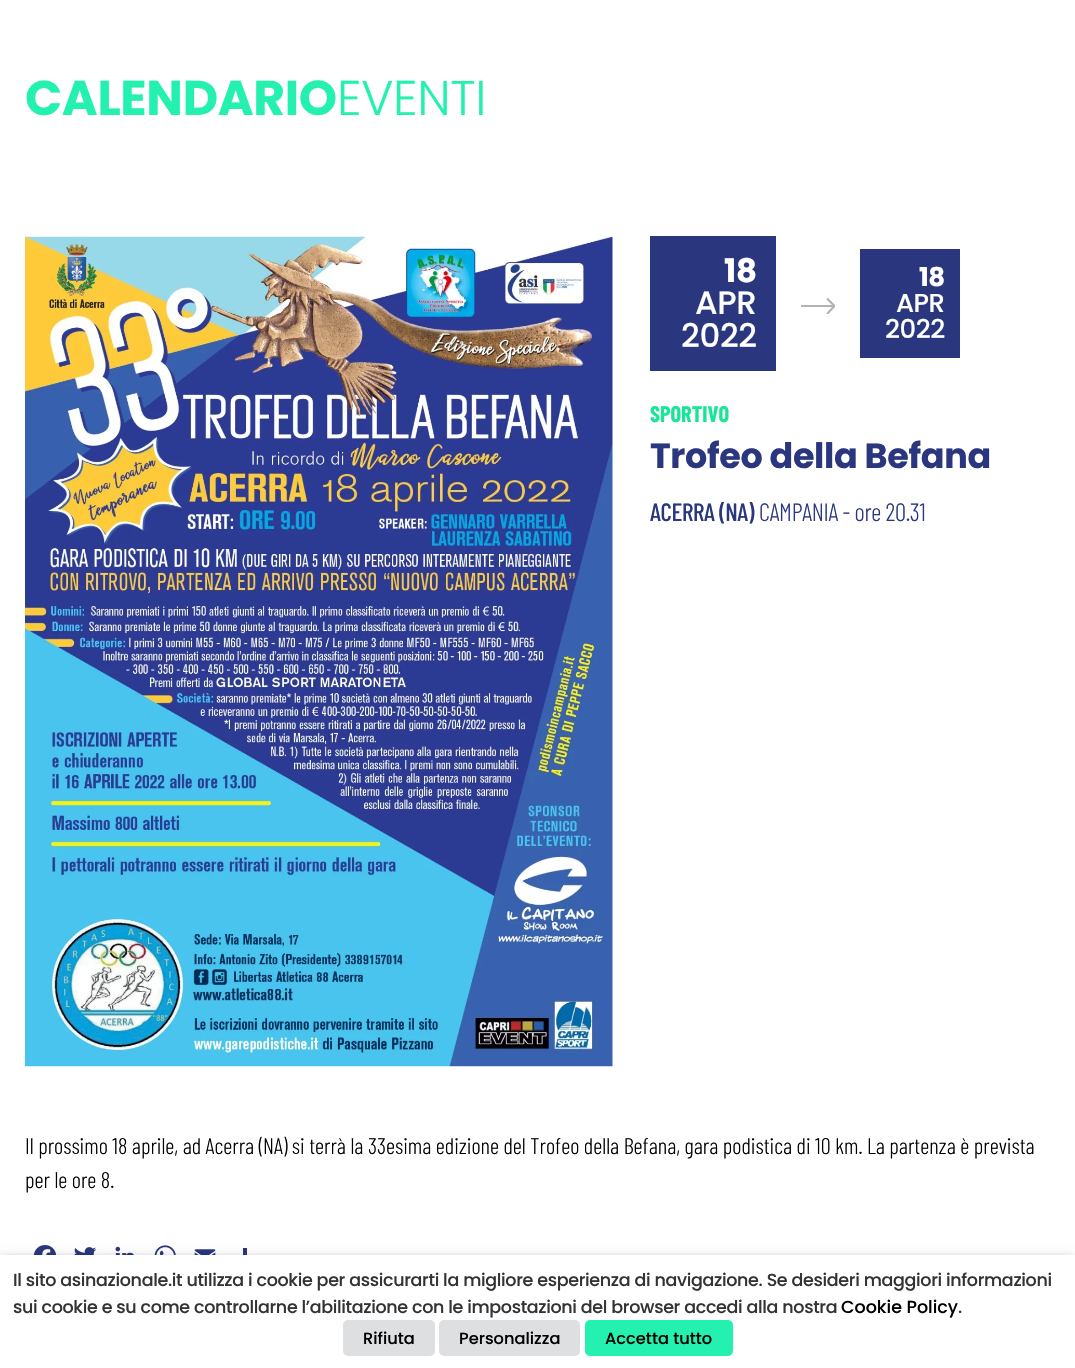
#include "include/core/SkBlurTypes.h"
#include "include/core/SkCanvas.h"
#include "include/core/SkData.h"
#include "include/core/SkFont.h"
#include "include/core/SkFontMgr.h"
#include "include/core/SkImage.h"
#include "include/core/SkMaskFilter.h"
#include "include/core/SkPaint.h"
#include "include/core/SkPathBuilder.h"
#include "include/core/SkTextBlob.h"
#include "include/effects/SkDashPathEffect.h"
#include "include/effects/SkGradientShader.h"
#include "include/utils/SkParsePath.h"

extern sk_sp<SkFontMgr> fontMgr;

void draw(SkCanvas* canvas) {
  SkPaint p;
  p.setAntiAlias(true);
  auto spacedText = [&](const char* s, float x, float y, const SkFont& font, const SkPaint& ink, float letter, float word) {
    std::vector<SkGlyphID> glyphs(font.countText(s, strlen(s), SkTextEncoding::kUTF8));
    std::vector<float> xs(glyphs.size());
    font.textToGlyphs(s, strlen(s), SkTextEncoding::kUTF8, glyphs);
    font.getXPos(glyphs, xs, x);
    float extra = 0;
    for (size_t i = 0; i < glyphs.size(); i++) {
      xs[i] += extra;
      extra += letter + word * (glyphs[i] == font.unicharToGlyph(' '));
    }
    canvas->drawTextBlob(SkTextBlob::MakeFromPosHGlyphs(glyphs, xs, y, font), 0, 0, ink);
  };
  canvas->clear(SK_ColorWHITE);
  canvas->drawImageRect(SkImages::DeferredFromEncodedData(SkData::MakeFromFileName("images/1.png")), SkRect::MakeLTRB(25, 236, 613, 1067), SkSamplingOptions());
  p.setColor(SkColorSetRGB(42, 55, 126));
  canvas->drawRect(SkRect::MakeLTRB(650, 236, 776, 371), p);
  p.setColor(SkColorSetRGB(179, 179, 179));
  canvas->drawRect(SkRect::MakeLTRB(801, 305, 835, 307), p);
  canvas->save();
  canvas->clipRect(SkRect::MakeLTRB(800, 298, 835, 314));
  p.setStyle(SkPaint::kStroke_Style);
  p.setStrokeWidth(2.2f);
  canvas->drawPath(SkPathBuilder().moveTo(827, 298.5f).lineTo(834.5f, 306).lineTo(827, 314).detach(), p);
  canvas->restore();
  p.setStyle(SkPaint::kFill_Style);
  p.setColor(SkColorSetRGB(42, 55, 126));
  canvas->drawRect(SkRect::MakeLTRB(860, 249, 960, 358), p);
  canvas->drawImageRect(SkImages::DeferredFromEncodedData(SkData::MakeFromFileName("images/2.png")), SkRect::MakeLTRB(33, 1245, 57, 1255), SkSamplingOptions());
  canvas->drawImageRect(SkImages::DeferredFromEncodedData(SkData::MakeFromFileName("images/3.png")), SkRect::MakeLTRB(74, 1247, 97, 1255), SkSamplingOptions());
  canvas->drawImageRect(SkImages::DeferredFromEncodedData(SkData::MakeFromFileName("images/4.png")), SkRect::MakeLTRB(115, 1246, 134, 1255), SkSamplingOptions());
  canvas->drawImageRect(SkImages::DeferredFromEncodedData(SkData::MakeFromFileName("images/5.png")), SkRect::MakeLTRB(154, 1245, 176, 1255), SkSamplingOptions());
  canvas->drawImageRect(SkImages::DeferredFromEncodedData(SkData::MakeFromFileName("images/6.png")), SkRect::MakeLTRB(194, 1249, 216, 1255), SkSamplingOptions());
  p.setColor(SkColorSetRGB(41, 55, 126));
  canvas->drawRect(SkRect::MakeLTRB(243, 1248, 247, 1255), p);
  p.setColor(SkColorSetARGB(128, 0, 0, 0));
  p.setMaskFilter(SkMaskFilter::MakeBlur(kNormal_SkBlurStyle, 6));
  canvas->drawRect(SkRect::MakeLTRB(0, 1261, 1075, 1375), p);
  p.setMaskFilter(nullptr);
  p.setColor(SK_ColorWHITE);
  canvas->drawRect(SkRect::MakeLTRB(0, 1255, 1075, 1368), p);
  p.setColor(SkColorSetRGB(222, 223, 224));
  canvas->drawRoundRect(SkRect::MakeLTRB(343, 1320, 435, 1356), 5, 5, p);
  canvas->drawRoundRect(SkRect::MakeLTRB(439, 1320, 580, 1356), 5, 5, p);
  p.setColor(SkColorSetRGB(36, 241, 176));
  canvas->drawRoundRect(SkRect::MakeLTRB(585, 1320, 733, 1356), 5, 5, p);
  SkFont font1(fontMgr->matchFamilyStyle("Poppins", SkFontStyle::Bold()), 48.75f);
  font1.setSubpixel(true);
  spacedText("CALENDARIO", 25, 115, font1, p, -0.34f, 0);
  SkFont font2(fontMgr->matchFamilyStyle("Poppins", SkFontStyle(300, SkFontStyle::kNormal_Width, SkFontStyle::kUpright_Slant)), 48.75f);
  font2.setSubpixel(true);
  spacedText("EVENTI", 337, 115, font2, p, -0.34f, 0);
  SkFont font3(fontMgr->matchFamilyStyle("Poppins", SkFontStyle::Bold()), 32.5f);
  font3.setSubpixel(true);
  p.setColor(SK_ColorWHITE);
  spacedText("18", 724, 282, font3, p, -0.34f, 0);
  SkFont font4(fontMgr->matchFamilyStyle("Poppins", SkFontStyle(500, SkFontStyle::kNormal_Width, SkFontStyle::kUpright_Slant)), 32.5f);
  font4.setSubpixel(true);
  spacedText("APR", 695, 314, font4, p, -0.34f, 0);
  spacedText("2022", 681, 347, font4, p, -0.34f, 0);
  SkFont font5(fontMgr->matchFamilyStyle("Poppins", SkFontStyle::Bold()), 26);
  font5.setSubpixel(true);
  spacedText("18", 919, 286, font5, p, -0.5f, 0);
  SkFont font6(fontMgr->matchFamilyStyle("Poppins", SkFontStyle(500, SkFontStyle::kNormal_Width, SkFontStyle::kUpright_Slant)), 26);
  font6.setSubpixel(true);
  spacedText("APR", 896, 312, font6, p, -0.5f, 0);
  spacedText("2022", 885, 338, font6, p, -0.5f, 0);
  SkFont font7(fontMgr->matchFamilyStyle("Barlow Condensed", SkFontStyle::Bold()), 22.5f);
  font7.setSubpixel(true);
  p.setColor(SkColorSetRGB(22, 230, 149));
  canvas->drawString("SPORTIVO", 650, 422, font7, p);
  SkFont font8(fontMgr->matchFamilyStyle("Poppins", SkFontStyle::Bold()), 35);
  font8.setSubpixel(true);
  p.setColor(SkColorSetRGB(42, 55, 126));
  spacedText("Trofeo della Befana", 650, 468, font8, p, -0.34f, 0);
  SkFont font9(fontMgr->matchFamilyStyle("Barlow Condensed", SkFontStyle(500, SkFontStyle::kNormal_Width, SkFontStyle::kUpright_Slant)), 25);
  font9.setSubpixel(true);
  spacedText("ACERRA (NA)", 650, 521, font9, p, -0.34f, 0);
  SkFont font10(fontMgr->matchFamilyStyle("Barlow Condensed", SkFontStyle(300, SkFontStyle::kNormal_Width, SkFontStyle::kUpright_Slant)), 25);
  font10.setSubpixel(true);
  spacedText("CAMPANIA - ore 20.31", 759, 521, font10, p, -0.34f, 0);
  SkFont font11(fontMgr->matchFamilyStyle("Barlow Condensed", SkFontStyle(300, SkFontStyle::kNormal_Width, SkFontStyle::kUpright_Slant)), 22.5f);
  font11.setSubpixel(true);
  p.setColor(SK_ColorBLACK);
  canvas->drawString("Il prossimo 18 aprile, ad Acerra (NA) si terrà la 33esima edizione del Trofeo della Befana, gara podistica di 10 km. La partenza è prevista", 25, 1154, font11, p);
  canvas->drawString("per le ore 8.", 25, 1188, font11, p);
  SkFont font12(fontMgr->matchFamilyStyle("Poppins", SkFontStyle(500, SkFontStyle::kNormal_Width, SkFontStyle::kUpright_Slant)), 17.5f);
  font12.setSubpixel(true);
  p.setColor(SkColorSetRGB(51, 51, 51));
  spacedText("Il sito asinazionale.it utilizza i cookie per assicurarti la migliore esperienza di navigazione. Se desideri maggiori informazioni", 13, 1286, font12, p, -0.34f, 0);
  spacedText("sui cookie e su come controllarne l’abilitazione con le impostazioni del browser accedi alla nostra", 13, 1313, font12, p, -0.34f, 0);
  p.setColor(SK_ColorBLACK);
  canvas->drawString("Cookie Policy", 841, 1313, font12, p);
  p.setColor(SkColorSetRGB(51, 51, 51));
  spacedText(".", 958, 1313, font12, p, -0.34f, 0);
  SkFont font13(fontMgr->matchFamilyStyle("Poppins", SkFontStyle(500, SkFontStyle::kNormal_Width, SkFontStyle::kUpright_Slant)), 16.25f);
  font13.setSubpixel(true);
  p.setColor(SK_ColorBLACK);
  canvas->drawString("Rifiuta", 363, 1344, font13, p);
  canvas->drawString("Personalizza", 459, 1344, font13, p);
  canvas->drawString("Accetta tutto", 605, 1344, font13, p);
}
